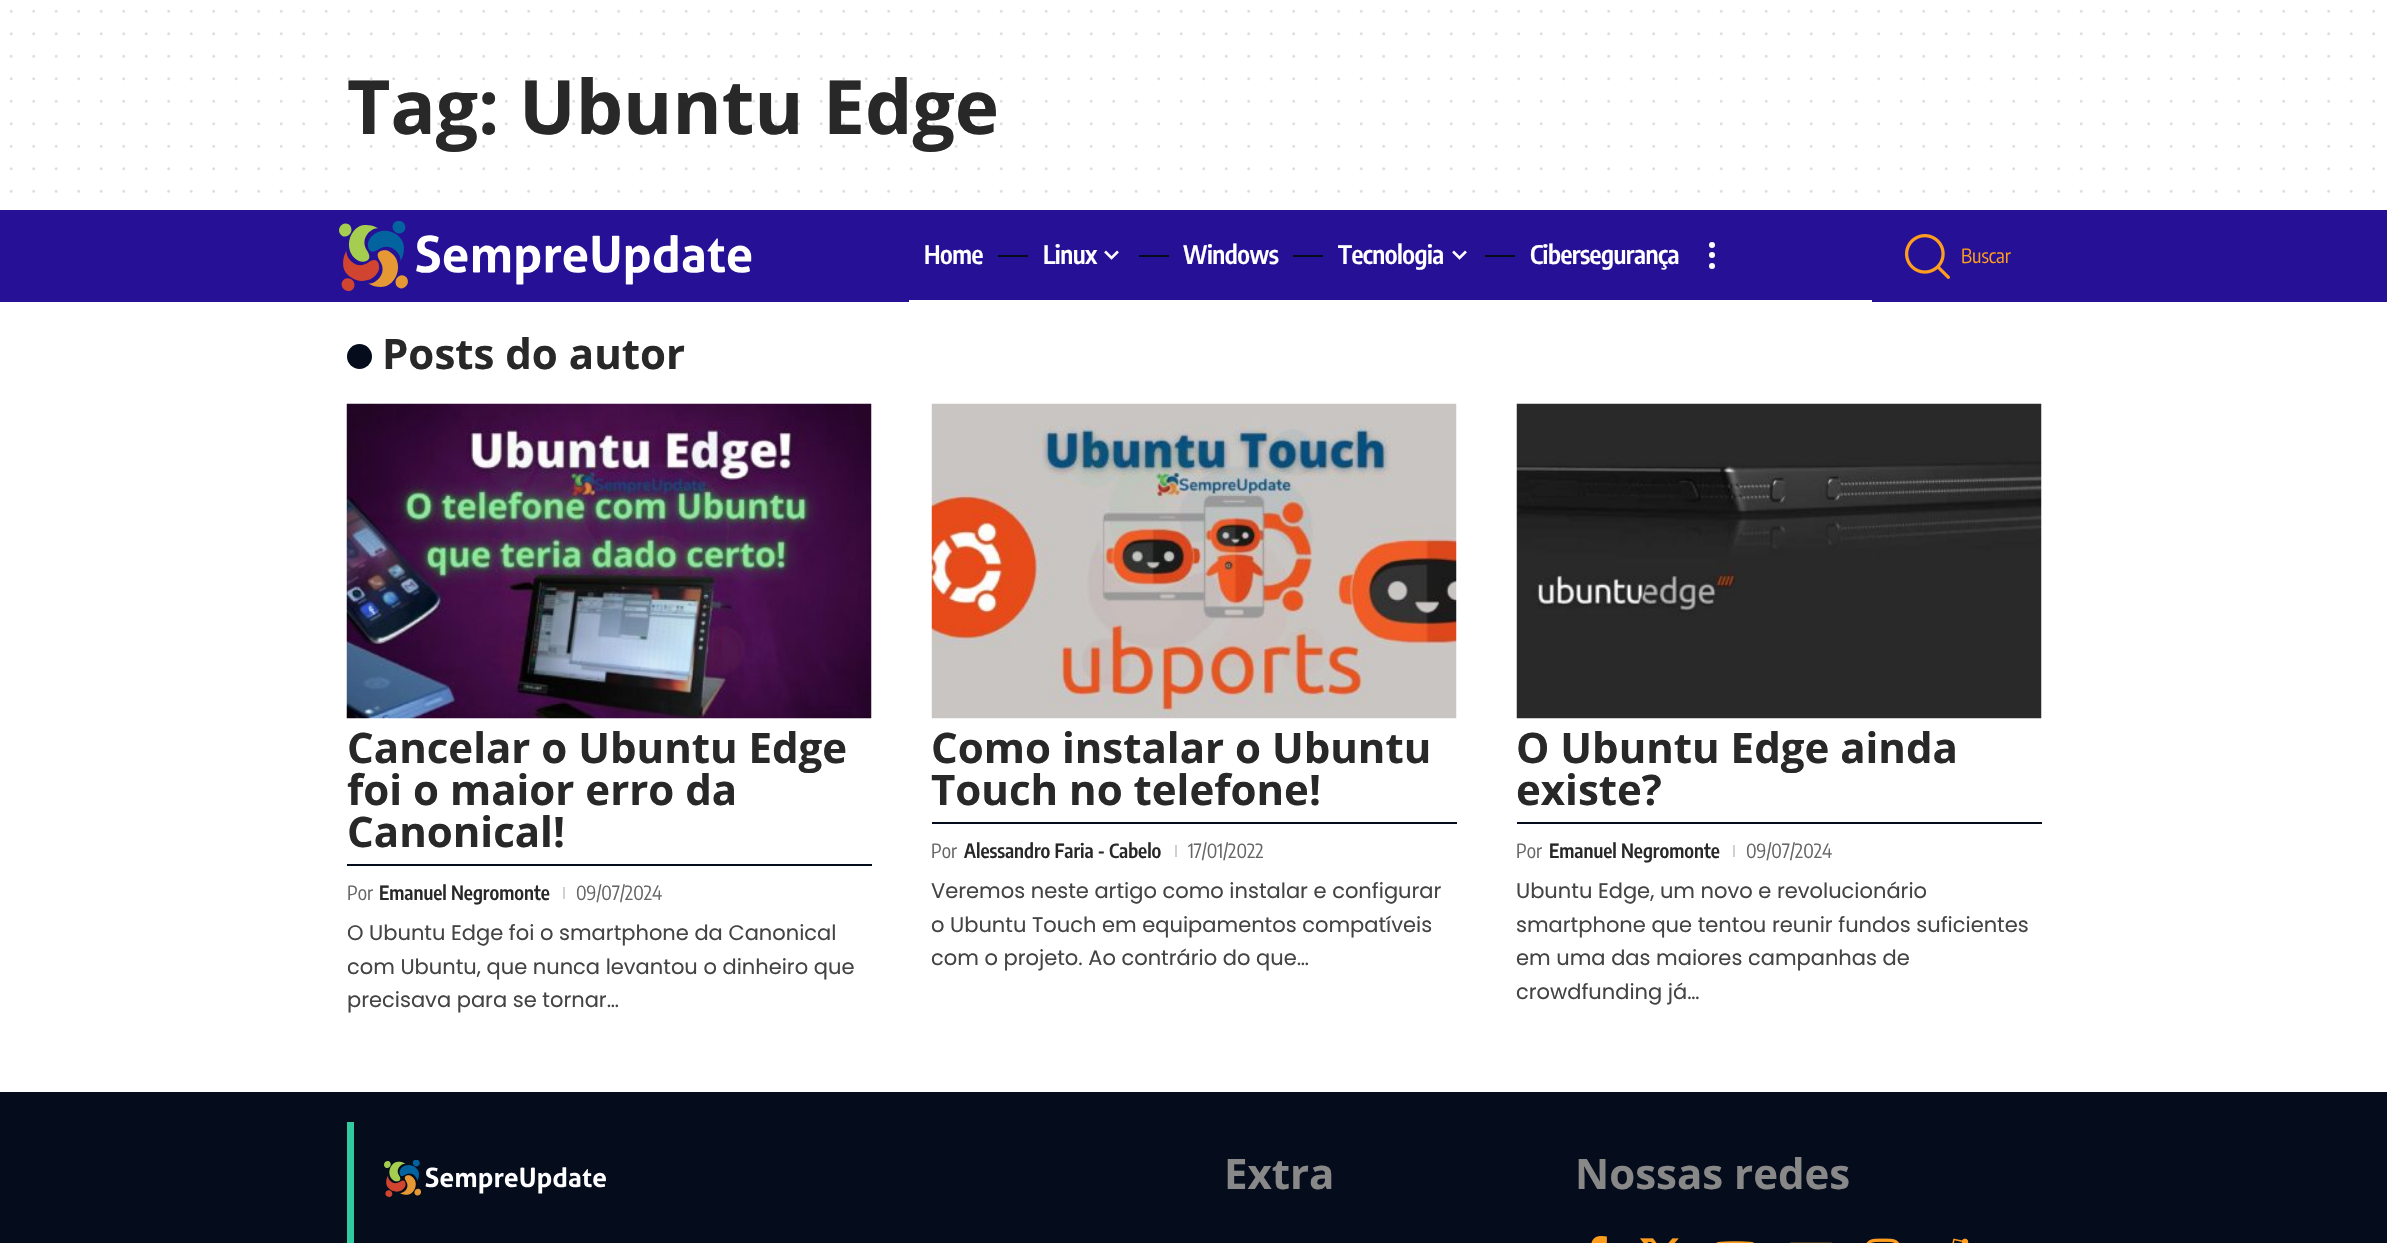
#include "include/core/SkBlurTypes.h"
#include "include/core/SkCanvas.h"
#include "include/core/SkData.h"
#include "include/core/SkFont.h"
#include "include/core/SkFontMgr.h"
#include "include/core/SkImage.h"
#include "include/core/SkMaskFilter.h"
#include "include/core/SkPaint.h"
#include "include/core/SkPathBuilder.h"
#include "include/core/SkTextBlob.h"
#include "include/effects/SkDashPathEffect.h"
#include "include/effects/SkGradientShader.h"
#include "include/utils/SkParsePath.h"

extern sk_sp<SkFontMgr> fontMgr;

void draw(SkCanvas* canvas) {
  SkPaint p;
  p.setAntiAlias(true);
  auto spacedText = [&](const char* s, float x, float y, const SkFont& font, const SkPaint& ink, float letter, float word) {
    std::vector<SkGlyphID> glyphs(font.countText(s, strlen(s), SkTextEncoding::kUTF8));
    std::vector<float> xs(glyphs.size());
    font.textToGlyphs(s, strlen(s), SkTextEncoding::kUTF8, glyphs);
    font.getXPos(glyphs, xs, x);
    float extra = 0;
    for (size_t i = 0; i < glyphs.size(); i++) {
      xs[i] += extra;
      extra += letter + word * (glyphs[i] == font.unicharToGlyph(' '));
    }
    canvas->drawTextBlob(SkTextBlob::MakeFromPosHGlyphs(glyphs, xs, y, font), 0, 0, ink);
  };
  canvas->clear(SK_ColorWHITE);
  p.setStyle(SkPaint::kStroke_Style);
  p.setStrokeWidth(3);
  p.setStrokeCap(SkPaint::kRound_Cap);
  p.setColor(SkColorSetRGB(223, 223, 223));
  p.setPathEffect(SkDashPathEffect::Make({{0, 22.5f}}, 0));
  canvas->drawPath(SkPathBuilder().moveTo(11.2f, 11.2f).lineTo(2374.1f, 11.2f).detach(), p);
  p.setPathEffect(nullptr);
  p.setPathEffect(SkDashPathEffect::Make({{0, 22.5f}}, 0));
  canvas->drawPath(SkPathBuilder().moveTo(11.2f, 33.8f).lineTo(2374.1f, 33.8f).detach(), p);
  p.setPathEffect(nullptr);
  p.setPathEffect(SkDashPathEffect::Make({{0, 22.5f}}, 0));
  canvas->drawPath(SkPathBuilder().moveTo(11.2f, 56.2f).lineTo(2374.1f, 56.2f).detach(), p);
  p.setPathEffect(nullptr);
  p.setPathEffect(SkDashPathEffect::Make({{0, 22.5f}}, 0));
  canvas->drawPath(SkPathBuilder().moveTo(11.2f, 168.8f).lineTo(2374.1f, 168.8f).detach(), p);
  p.setPathEffect(nullptr);
  p.setPathEffect(SkDashPathEffect::Make({{0, 22.5f}}, 0));
  canvas->drawPath(SkPathBuilder().moveTo(11.2f, 191.2f).lineTo(2374.1f, 191.2f).detach(), p);
  p.setPathEffect(nullptr);
  p.setStyle(SkPaint::kFill_Style);
  p.setColor(SkColorSetRGB(38, 17, 150));
  canvas->drawRect(SkRect::MakeLTRB(0, 210, 2387, 302), p);
  canvas->drawImageRect(SkImages::DeferredFromEncodedData(SkData::MakeFromFileName("images/1.png")), SkRect::MakeLTRB(339, 221, 752, 291), SkSamplingOptions());
  p.setColor(SkColorSetRGB(5, 12, 28));
  canvas->drawRect(SkRect::MakeLTRB(998, 255, 1028, 257), p);
  canvas->drawImageRect(SkImages::DeferredFromEncodedData(SkData::MakeFromFileName("images/2.png")), SkRect::MakeLTRB(1104, 250, 1119, 260), SkSamplingOptions());
  canvas->drawRect(SkRect::MakeLTRB(1139, 255, 1169, 257), p);
  canvas->drawRect(SkRect::MakeLTRB(1293, 255, 1323, 257), p);
  canvas->drawImageRect(SkImages::DeferredFromEncodedData(SkData::MakeFromFileName("images/2.png")), SkRect::MakeLTRB(1452, 250, 1467, 260), SkSamplingOptions());
  canvas->drawRect(SkRect::MakeLTRB(1485, 255, 1515, 257), p);
  p.setColor(SK_ColorWHITE);
  canvas->drawCircle(1712, 245, 3, p);
  canvas->drawCircle(1712, 255, 3, p);
  canvas->drawCircle(1712, 266, 3, p);
  canvas->drawRect(SkRect::MakeLTRB(909, 300, 1872, 302), p);
  canvas->drawImageRect(SkImages::DeferredFromEncodedData(SkData::MakeFromFileName("images/3.png")), SkRect::MakeLTRB(1905, 234, 1950, 279), SkSamplingOptions());
  p.setColor(SkColorSetRGB(5, 12, 28));
  canvas->drawCircle(359.5f, 356.5f, 12.5f, p);
  canvas->drawImageRect(SkImages::DeferredFromEncodedData(SkData::MakeFromFileName("images/4.png")), SkRect::MakeLTRB(346, 403, 872, 719), SkSamplingOptions());
  canvas->drawRect(SkRect::MakeLTRB(347, 864, 872, 866), p);
  p.setColor(SkColorSetRGB(209, 209, 209));
  canvas->drawRect(SkRect::MakeLTRB(563, 887, 565, 899), p);
  canvas->drawImageRect(SkImages::DeferredFromEncodedData(SkData::MakeFromFileName("images/5.png")), SkRect::MakeLTRB(931, 403, 1457, 719), SkSamplingOptions());
  p.setColor(SkColorSetRGB(5, 12, 28));
  canvas->drawRect(SkRect::MakeLTRB(932, 822, 1457, 824), p);
  p.setColor(SkColorSetRGB(209, 209, 209));
  canvas->drawRect(SkRect::MakeLTRB(1175, 845, 1177, 857), p);
  canvas->drawImageRect(SkImages::DeferredFromEncodedData(SkData::MakeFromFileName("images/6.png")), SkRect::MakeLTRB(1516, 403, 2042, 719), SkSamplingOptions());
  p.setColor(SkColorSetRGB(5, 12, 28));
  canvas->drawRect(SkRect::MakeLTRB(1517, 822, 2042, 824), p);
  p.setColor(SkColorSetRGB(209, 209, 209));
  canvas->drawRect(SkRect::MakeLTRB(1733, 845, 1735, 857), p);
  p.setColor(SkColorSetRGB(5, 12, 28));
  canvas->drawRect(SkRect::MakeLTRB(0, 1092, 2387, 1243), p);
  p.setColor(SkColorSetRGB(48, 204, 160));
  canvas->drawRect(SkRect::MakeLTRB(347, 1122, 354, 1243), p);
  canvas->drawImageRect(SkImages::DeferredFromEncodedData(SkData::MakeFromFileName("images/7.png")), SkRect::MakeLTRB(384, 1160, 606, 1197), SkSamplingOptions());
  canvas->drawImageRect(SkImages::DeferredFromEncodedData(SkData::MakeFromFileName("images/8.png")), SkRect::MakeLTRB(1591, 1236, 1607, 1243), SkSamplingOptions());
  canvas->drawImageRect(SkImages::DeferredFromEncodedData(SkData::MakeFromFileName("images/9.png")), SkRect::MakeLTRB(1640, 1238, 1679, 1243), SkSamplingOptions());
  canvas->drawImageRect(SkImages::DeferredFromEncodedData(SkData::MakeFromFileName("images/10.png")), SkRect::MakeLTRB(1716, 1241, 1755, 1243), SkSamplingOptions());
  canvas->drawImageRect(SkImages::DeferredFromEncodedData(SkData::MakeFromFileName("images/11.png")), SkRect::MakeLTRB(1789, 1242, 1832, 1243), SkSamplingOptions());
  canvas->drawImageRect(SkImages::DeferredFromEncodedData(SkData::MakeFromFileName("images/12.png")), SkRect::MakeLTRB(1866, 1238, 1900, 1243), SkSamplingOptions());
  canvas->drawImageRect(SkImages::DeferredFromEncodedData(SkData::MakeFromFileName("images/13.png")), SkRect::MakeLTRB(1952, 1238, 1969, 1243), SkSamplingOptions());
  SkFont font1(fontMgr->matchFamilyStyle("Open Sans", SkFontStyle::Bold()), 75);
  font1.setSubpixel(true);
  p.setColor(SkColorSetRGB(40, 40, 40));
  canvas->drawString("Tag: Ubuntu Edge", 347, 134, font1, p);
  p.setStyle(SkPaint::kStroke_Style);
  p.setColor(SkColorSetARGB(38, 40, 40, 40));
  p.setPathEffect(SkDashPathEffect::Make({{0, 22.5f}}, 0));
  canvas->drawPath(SkPathBuilder().moveTo(11.2f, 146.2f).lineTo(2374.1f, 146.2f).detach(), p);
  p.setPathEffect(nullptr);
  p.setPathEffect(SkDashPathEffect::Make({{0, 22.5f}}, 0));
  canvas->drawPath(SkPathBuilder().moveTo(11.2f, 123.8f).lineTo(2374.1f, 123.8f).detach(), p);
  p.setPathEffect(nullptr);
  p.setPathEffect(SkDashPathEffect::Make({{0, 22.5f}}, 0));
  canvas->drawPath(SkPathBuilder().moveTo(11.2f, 101.2f).lineTo(2374.1f, 101.2f).detach(), p);
  p.setPathEffect(nullptr);
  p.setColor(SkColorSetRGB(223, 223, 223));
  p.setPathEffect(SkDashPathEffect::Make({{0, 22.5f}}, 0));
  canvas->drawPath(SkPathBuilder().moveTo(11.2f, 78.8f).lineTo(2374.1f, 78.8f).detach(), p);
  p.setPathEffect(nullptr);
  SkFont font2(fontMgr->matchFamilyStyle("Encode Sans Condensed", SkFontStyle(600, SkFontStyle::kNormal_Width, SkFontStyle::kUpright_Slant)), 25.5f);
  font2.setSubpixel(true);
  p.setStyle(SkPaint::kFill_Style);
  p.setColor(SK_ColorWHITE);
  spacedText("Home", 924, 264, font2, p, -0.5f, 0);
  spacedText("Linux", 1043, 264, font2, p, -0.5f, 0);
  spacedText("Windows", 1183, 264, font2, p, -0.5f, 0);
  spacedText("Tecnologia", 1338, 264, font2, p, -0.5f, 0);
  spacedText("Cibersegurança", 1530, 264, font2, p, -0.5f, 0);
  SkFont font3(fontMgr->matchFamilyStyle("Encode Sans Condensed", SkFontStyle::Normal()), 19.5f);
  font3.setSubpixel(true);
  p.setColor(SkColorSetRGB(255, 157, 30));
  canvas->drawString("Buscar", 1961, 263, font3, p);
  SkFont font4(fontMgr->matchFamilyStyle("Open Sans", SkFontStyle::Bold()), 42);
  font4.setSubpixel(true);
  p.setColor(SkColorSetRGB(40, 40, 40));
  canvas->drawString("Posts do autor", 382, 369, font4, p);
  canvas->drawString("Cancelar o Ubuntu Edge", 347, 763, font4, p);
  canvas->drawString("foi o maior erro da", 347, 805, font4, p);
  canvas->drawString("Canonical!", 347, 847, font4, p);
  p.setColor(SkColorSetRGB(102, 102, 102));
  canvas->drawString("Por", 347, 900, font3, p);
  SkFont font5(fontMgr->matchFamilyStyle("Encode Sans Condensed", SkFontStyle(600, SkFontStyle::kNormal_Width, SkFontStyle::kUpright_Slant)), 19.5f);
  font5.setSubpixel(true);
  p.setColor(SkColorSetRGB(40, 40, 40));
  canvas->drawString("Emanuel Negromonte", 379, 900, font5, p);
  p.setColor(SkColorSetRGB(102, 102, 102));
  canvas->drawString("09/07/2024", 576, 900, font3, p);
  SkFont font6(fontMgr->matchFamilyStyle("Poppins", SkFontStyle::Normal()), 21);
  font6.setSubpixel(true);
  p.setColor(SkColorSetRGB(68, 68, 68));
  canvas->drawString("O Ubuntu Edge foi o smartphone da Canonical", 347, 940, font6, p);
  canvas->drawString("com Ubuntu, que nunca levantou o dinheiro que", 347, 974, font6, p);
  canvas->drawString("precisava para se tornar…", 347, 1007, font6, p);
  p.setColor(SkColorSetRGB(40, 40, 40));
  canvas->drawString("Como instalar o Ubuntu", 931, 763, font4, p);
  canvas->drawString("Touch no telefone!", 931, 805, font4, p);
  p.setColor(SkColorSetRGB(102, 102, 102));
  canvas->drawString("Por", 931, 858, font3, p);
  p.setColor(SkColorSetRGB(40, 40, 40));
  canvas->drawString("Alessandro Faria - Cabelo", 964, 858, font5, p);
  p.setColor(SkColorSetRGB(102, 102, 102));
  canvas->drawString("17/01/2022", 1188, 858, font3, p);
  p.setColor(SkColorSetRGB(68, 68, 68));
  canvas->drawString("Veremos neste artigo como instalar e configurar", 931, 898, font6, p);
  canvas->drawString("o Ubuntu Touch em equipamentos compatíveis", 931, 932, font6, p);
  canvas->drawString("com o projeto. Ao contrário do que…", 931, 965, font6, p);
  p.setColor(SkColorSetRGB(40, 40, 40));
  canvas->drawString("O Ubuntu Edge ainda", 1516, 763, font4, p);
  canvas->drawString("existe?", 1516, 805, font4, p);
  p.setColor(SkColorSetRGB(102, 102, 102));
  canvas->drawString("Por", 1516, 858, font3, p);
  p.setColor(SkColorSetRGB(40, 40, 40));
  canvas->drawString("Emanuel Negromonte", 1549, 858, font5, p);
  p.setColor(SkColorSetRGB(102, 102, 102));
  canvas->drawString("09/07/2024", 1746, 858, font3, p);
  p.setColor(SkColorSetRGB(68, 68, 68));
  canvas->drawString("Ubuntu Edge, um novo e revolucionário", 1516, 898, font6, p);
  canvas->drawString("smartphone que tentou reunir fundos suficientes", 1516, 932, font6, p);
  canvas->drawString("em uma das maiores campanhas de", 1516, 965, font6, p);
  canvas->drawString("crowdfunding já…", 1516, 999, font6, p);
  p.setColor(SkColorSetRGB(136, 136, 136));
  canvas->drawString("Extra", 1224, 1189, font4, p);
  canvas->drawString("Nossas redes", 1575, 1189, font4, p);
}
